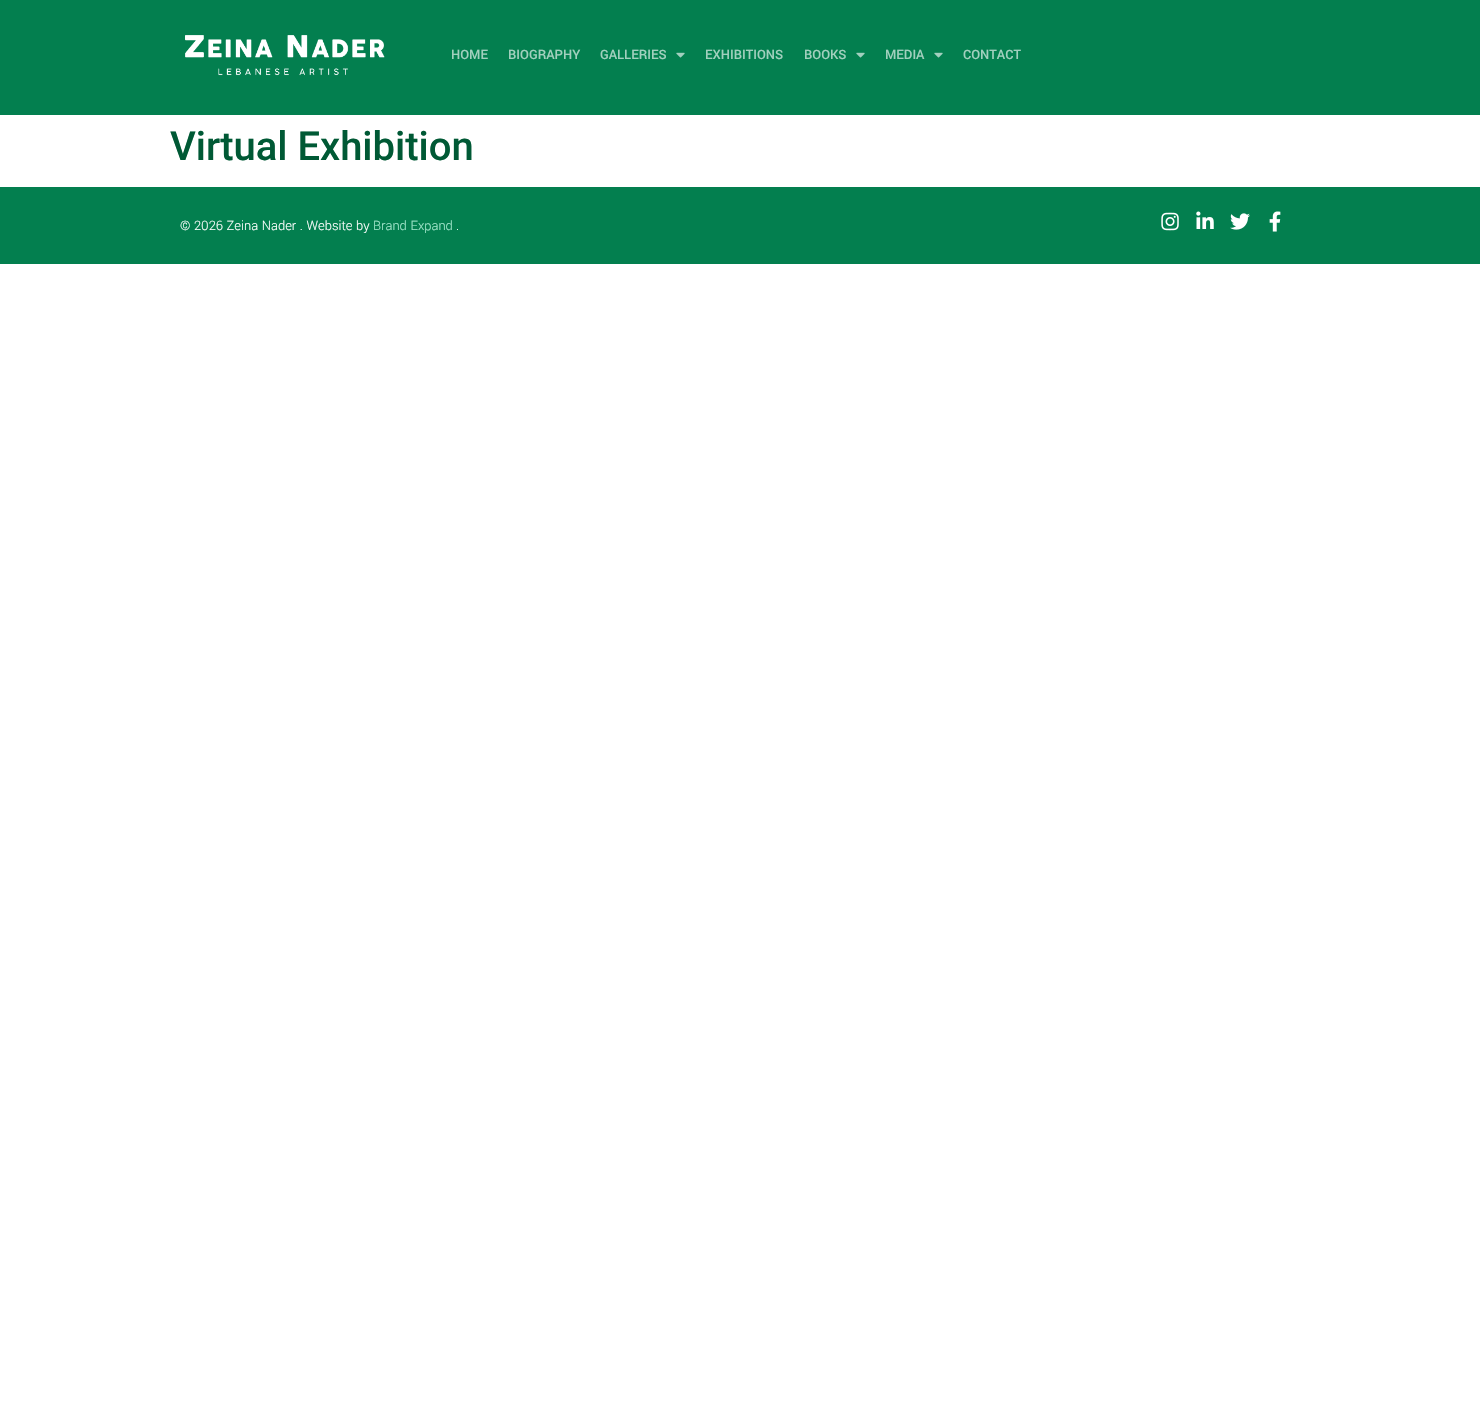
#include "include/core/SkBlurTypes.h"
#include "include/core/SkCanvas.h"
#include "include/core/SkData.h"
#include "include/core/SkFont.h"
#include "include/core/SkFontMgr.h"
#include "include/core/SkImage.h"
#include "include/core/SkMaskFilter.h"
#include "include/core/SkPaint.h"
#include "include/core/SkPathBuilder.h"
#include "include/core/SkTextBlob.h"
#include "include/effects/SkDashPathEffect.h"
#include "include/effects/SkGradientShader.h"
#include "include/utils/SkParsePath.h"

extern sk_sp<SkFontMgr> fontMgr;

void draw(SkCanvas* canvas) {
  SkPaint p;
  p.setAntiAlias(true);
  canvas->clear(SK_ColorWHITE);
  p.setColor(SkColorSetRGB(3, 127, 79));
  canvas->drawRect(SkRect::MakeLTRB(0, 0, 1480, 115), p);
  canvas->drawImageRect(SkImages::DeferredFromEncodedData(SkData::MakeFromFileName("images/1.png")), SkRect::MakeLTRB(185, 35, 385, 76), SkSamplingOptions());
  canvas->drawImageRect(SkImages::DeferredFromEncodedData(SkData::MakeFromFileName("images/2.png")), SkRect::MakeLTRB(676, 52, 685, 58), SkSamplingOptions());
  canvas->drawImageRect(SkImages::DeferredFromEncodedData(SkData::MakeFromFileName("images/2.png")), SkRect::MakeLTRB(856, 52, 865, 58), SkSamplingOptions());
  canvas->drawImageRect(SkImages::DeferredFromEncodedData(SkData::MakeFromFileName("images/2.png")), SkRect::MakeLTRB(934, 52, 943, 58), SkSamplingOptions());
  canvas->drawRect(SkRect::MakeLTRB(0, 187, 1480, 264), p);
  canvas->drawImageRect(SkImages::DeferredFromEncodedData(SkData::MakeFromFileName("images/3.png")), SkRect::MakeLTRB(1161, 212, 1179, 231), SkSamplingOptions());
  canvas->drawImageRect(SkImages::DeferredFromEncodedData(SkData::MakeFromFileName("images/4.png")), SkRect::MakeLTRB(1196, 211, 1214, 229), SkSamplingOptions());
  canvas->drawImageRect(SkImages::DeferredFromEncodedData(SkData::MakeFromFileName("images/5.png")), SkRect::MakeLTRB(1230, 213, 1250, 230), SkSamplingOptions());
  canvas->drawImageRect(SkImages::DeferredFromEncodedData(SkData::MakeFromFileName("images/6.png")), SkRect::MakeLTRB(1269, 211, 1281, 232), SkSamplingOptions());
  SkFont font1(fontMgr->matchFamilyStyle("Yantramanav", SkFontStyle(500, SkFontStyle::kNormal_Width, SkFontStyle::kUpright_Slant)), 14.4f);
  font1.setSubpixel(true);
  p.setColor(SkColorSetRGB(162, 208, 190));
  canvas->drawString("HOME", 451, 59, font1, p);
  canvas->drawString("BIOGRAPHY", 508, 59, font1, p);
  canvas->drawString("GALLERIES", 600, 59, font1, p);
  canvas->drawString("EXHIBITIONS", 705, 59, font1, p);
  canvas->drawString("BOOKS", 804, 59, font1, p);
  canvas->drawString("MEDIA", 885, 59, font1, p);
  canvas->drawString("CONTACT", 963, 59, font1, p);
  SkFont font2(fontMgr->matchFamilyStyle("Roboto", SkFontStyle(500, SkFontStyle::kNormal_Width, SkFontStyle::kUpright_Slant)), 40);
  font2.setSubpixel(true);
  p.setColor(SkColorSetRGB(0, 89, 53));
  canvas->drawString("Virtual Exhibition", 170, 160, font2, p);
  SkFont font3(fontMgr->matchFamilyStyle("Yantramanav", SkFontStyle(300, SkFontStyle::kNormal_Width, SkFontStyle::kUpright_Slant)), 14.4f);
  font3.setSubpixel(true);
  p.setColor(SK_ColorWHITE);
  canvas->drawString("© 2026 Zeina Nader . Website by", 180, 230, font3, p);
  p.setColor(SkColorSetRGB(160, 229, 202));
  canvas->drawString("Brand Expand", 373, 230, font3, p);
  p.setColor(SK_ColorWHITE);
  canvas->drawString(".", 456, 230, font3, p);
}
